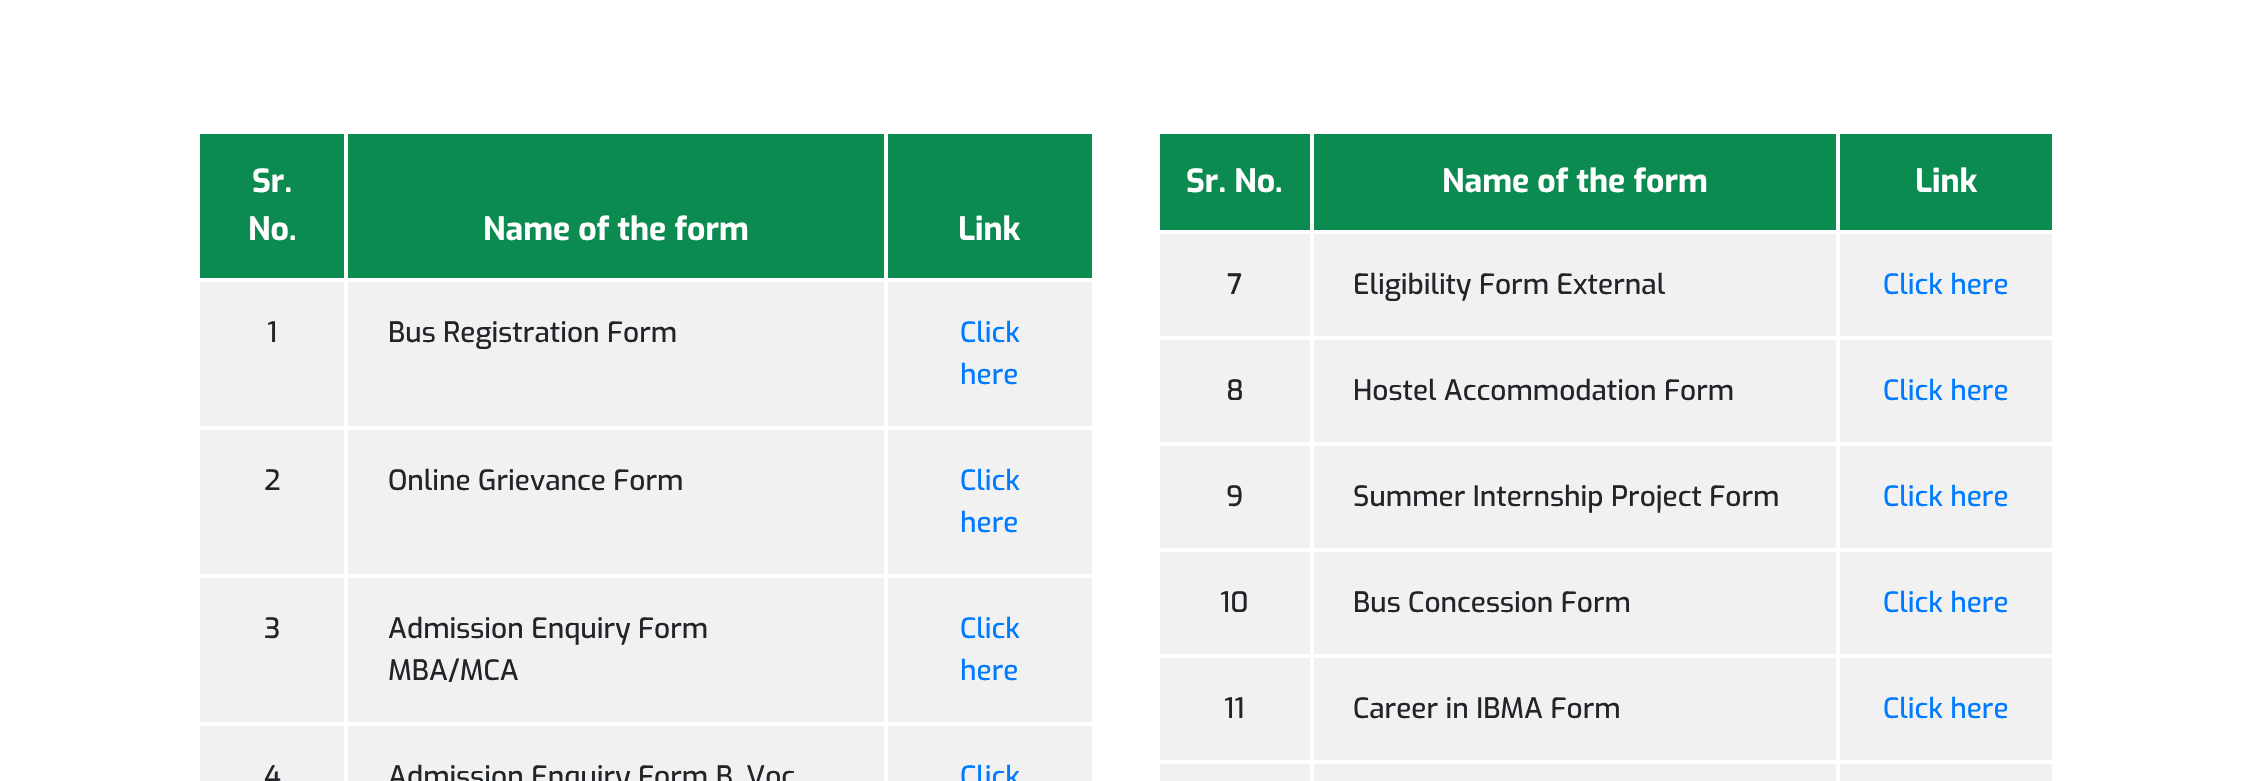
#include "include/core/SkBlurTypes.h"
#include "include/core/SkCanvas.h"
#include "include/core/SkData.h"
#include "include/core/SkFont.h"
#include "include/core/SkFontMgr.h"
#include "include/core/SkImage.h"
#include "include/core/SkMaskFilter.h"
#include "include/core/SkPaint.h"
#include "include/core/SkPathBuilder.h"
#include "include/core/SkTextBlob.h"
#include "include/effects/SkDashPathEffect.h"
#include "include/effects/SkGradientShader.h"
#include "include/utils/SkParsePath.h"

extern sk_sp<SkFontMgr> fontMgr;

void draw(SkCanvas* canvas) {
  SkPaint p;
  p.setAntiAlias(true);
  canvas->clear(SK_ColorWHITE);
  p.setColor(SkColorSetRGB(12, 139, 81));
  canvas->drawRect(SkRect::MakeLTRB(200, 134, 344, 278), p);
  canvas->drawRect(SkRect::MakeLTRB(348, 134, 884, 278), p);
  canvas->drawRect(SkRect::MakeLTRB(888, 134, 1092, 278), p);
  p.setColor(SkColorSetRGB(241, 241, 241));
  canvas->drawRect(SkRect::MakeLTRB(200, 282, 344, 426), p);
  canvas->drawRect(SkRect::MakeLTRB(348, 282, 884, 426), p);
  canvas->drawRect(SkRect::MakeLTRB(888, 282, 1092, 426), p);
  canvas->drawRect(SkRect::MakeLTRB(200, 430, 344, 574), p);
  canvas->drawRect(SkRect::MakeLTRB(348, 430, 884, 574), p);
  canvas->drawRect(SkRect::MakeLTRB(888, 430, 1092, 574), p);
  canvas->drawRect(SkRect::MakeLTRB(200, 578, 344, 722), p);
  canvas->drawRect(SkRect::MakeLTRB(348, 578, 884, 722), p);
  canvas->drawRect(SkRect::MakeLTRB(888, 578, 1092, 722), p);
  canvas->drawRect(SkRect::MakeLTRB(200, 726, 344, 781), p);
  canvas->drawRect(SkRect::MakeLTRB(348, 726, 884, 781), p);
  canvas->drawRect(SkRect::MakeLTRB(888, 726, 1092, 781), p);
  p.setColor(SkColorSetRGB(12, 139, 81));
  canvas->drawRect(SkRect::MakeLTRB(1160, 134, 1310, 230), p);
  canvas->drawRect(SkRect::MakeLTRB(1314, 134, 1836, 230), p);
  canvas->drawRect(SkRect::MakeLTRB(1840, 134, 2052, 230), p);
  p.setColor(SkColorSetRGB(241, 241, 241));
  canvas->drawRect(SkRect::MakeLTRB(1160, 234, 1310, 336), p);
  canvas->drawRect(SkRect::MakeLTRB(1314, 234, 1836, 336), p);
  canvas->drawRect(SkRect::MakeLTRB(1840, 234, 2052, 336), p);
  canvas->drawRect(SkRect::MakeLTRB(1160, 340, 1310, 442), p);
  canvas->drawRect(SkRect::MakeLTRB(1314, 340, 1836, 442), p);
  canvas->drawRect(SkRect::MakeLTRB(1840, 340, 2052, 442), p);
  canvas->drawRect(SkRect::MakeLTRB(1160, 446, 1310, 548), p);
  canvas->drawRect(SkRect::MakeLTRB(1314, 446, 1836, 548), p);
  canvas->drawRect(SkRect::MakeLTRB(1840, 446, 2052, 548), p);
  canvas->drawRect(SkRect::MakeLTRB(1160, 552, 1310, 654), p);
  canvas->drawRect(SkRect::MakeLTRB(1314, 552, 1836, 654), p);
  canvas->drawRect(SkRect::MakeLTRB(1840, 552, 2052, 654), p);
  canvas->drawRect(SkRect::MakeLTRB(1160, 658, 1310, 760), p);
  canvas->drawRect(SkRect::MakeLTRB(1314, 658, 1836, 760), p);
  canvas->drawRect(SkRect::MakeLTRB(1840, 658, 2052, 760), p);
  canvas->drawRect(SkRect::MakeLTRB(1160, 764, 1310, 781), p);
  canvas->drawRect(SkRect::MakeLTRB(1314, 764, 1836, 781), p);
  canvas->drawRect(SkRect::MakeLTRB(1840, 764, 2052, 781), p);
  SkFont font1(fontMgr->matchFamilyStyle("Exo", SkFontStyle::Bold()), 32);
  font1.setSubpixel(true);
  p.setColor(SK_ColorWHITE);
  canvas->drawString("Sr.", 252, 192, font1, p);
  canvas->drawString("No.", 248, 240, font1, p);
  canvas->drawString("Name of the form", 483, 240, font1, p);
  canvas->drawString("Link", 958, 240, font1, p);
  SkFont font2(fontMgr->matchFamilyStyle("Exo", SkFontStyle(500, SkFontStyle::kNormal_Width, SkFontStyle::kUpright_Slant)), 28);
  font2.setSubpixel(true);
  p.setColor(SkColorSetRGB(33, 37, 41));
  canvas->drawString("1", 267, 342, font2, p);
  canvas->drawString("Bus Registration Form", 388, 342, font2, p);
  p.setColor(SkColorSetRGB(0, 123, 255));
  canvas->drawString("Click", 960, 342, font2, p);
  canvas->drawString("here", 960, 384, font2, p);
  p.setColor(SkColorSetRGB(33, 37, 41));
  canvas->drawString("2", 264, 490, font2, p);
  canvas->drawString("Online Grievance Form", 388, 490, font2, p);
  p.setColor(SkColorSetRGB(0, 123, 255));
  canvas->drawString("Click", 960, 490, font2, p);
  canvas->drawString("here", 960, 532, font2, p);
  p.setColor(SkColorSetRGB(33, 37, 41));
  canvas->drawString("3", 264, 638, font2, p);
  canvas->drawString("Admission Enquiry Form", 388, 638, font2, p);
  canvas->drawString("MBA/MCA", 388, 680, font2, p);
  p.setColor(SkColorSetRGB(0, 123, 255));
  canvas->drawString("Click", 960, 638, font2, p);
  canvas->drawString("here", 960, 680, font2, p);
  p.setColor(SkColorSetRGB(33, 37, 41));
  canvas->drawString("4", 264, 786, font2, p);
  canvas->drawString("Admission Enquiry Form B. Voc", 388, 786, font2, p);
  p.setColor(SkColorSetRGB(0, 123, 255));
  canvas->drawString("Click", 960, 786, font2, p);
  p.setColor(SK_ColorWHITE);
  canvas->drawString("Sr. No.", 1186, 192, font1, p);
  canvas->drawString("Name of the form", 1442, 192, font1, p);
  canvas->drawString("Link", 1915, 192, font1, p);
  p.setColor(SkColorSetRGB(33, 37, 41));
  canvas->drawString("7", 1227, 294, font2, p);
  canvas->drawString("Eligibility Form External", 1353, 294, font2, p);
  p.setColor(SkColorSetRGB(0, 123, 255));
  canvas->drawString("Click here", 1883, 294, font2, p);
  p.setColor(SkColorSetRGB(33, 37, 41));
  canvas->drawString("8", 1226, 400, font2, p);
  canvas->drawString("Hostel Accommodation Form", 1353, 400, font2, p);
  p.setColor(SkColorSetRGB(0, 123, 255));
  canvas->drawString("Click here", 1883, 400, font2, p);
  p.setColor(SkColorSetRGB(33, 37, 41));
  canvas->drawString("9", 1226, 506, font2, p);
  canvas->drawString("Summer Internship Project Form", 1353, 506, font2, p);
  p.setColor(SkColorSetRGB(0, 123, 255));
  canvas->drawString("Click here", 1883, 506, font2, p);
  p.setColor(SkColorSetRGB(33, 37, 41));
  canvas->drawString("10", 1220, 612, font2, p);
  canvas->drawString("Bus Concession Form", 1353, 612, font2, p);
  p.setColor(SkColorSetRGB(0, 123, 255));
  canvas->drawString("Click here", 1883, 612, font2, p);
  p.setColor(SkColorSetRGB(33, 37, 41));
  canvas->drawString("11", 1224, 718, font2, p);
  canvas->drawString("Career in IBMA Form", 1353, 718, font2, p);
  p.setColor(SkColorSetRGB(0, 123, 255));
  canvas->drawString("Click here", 1883, 718, font2, p);
}
